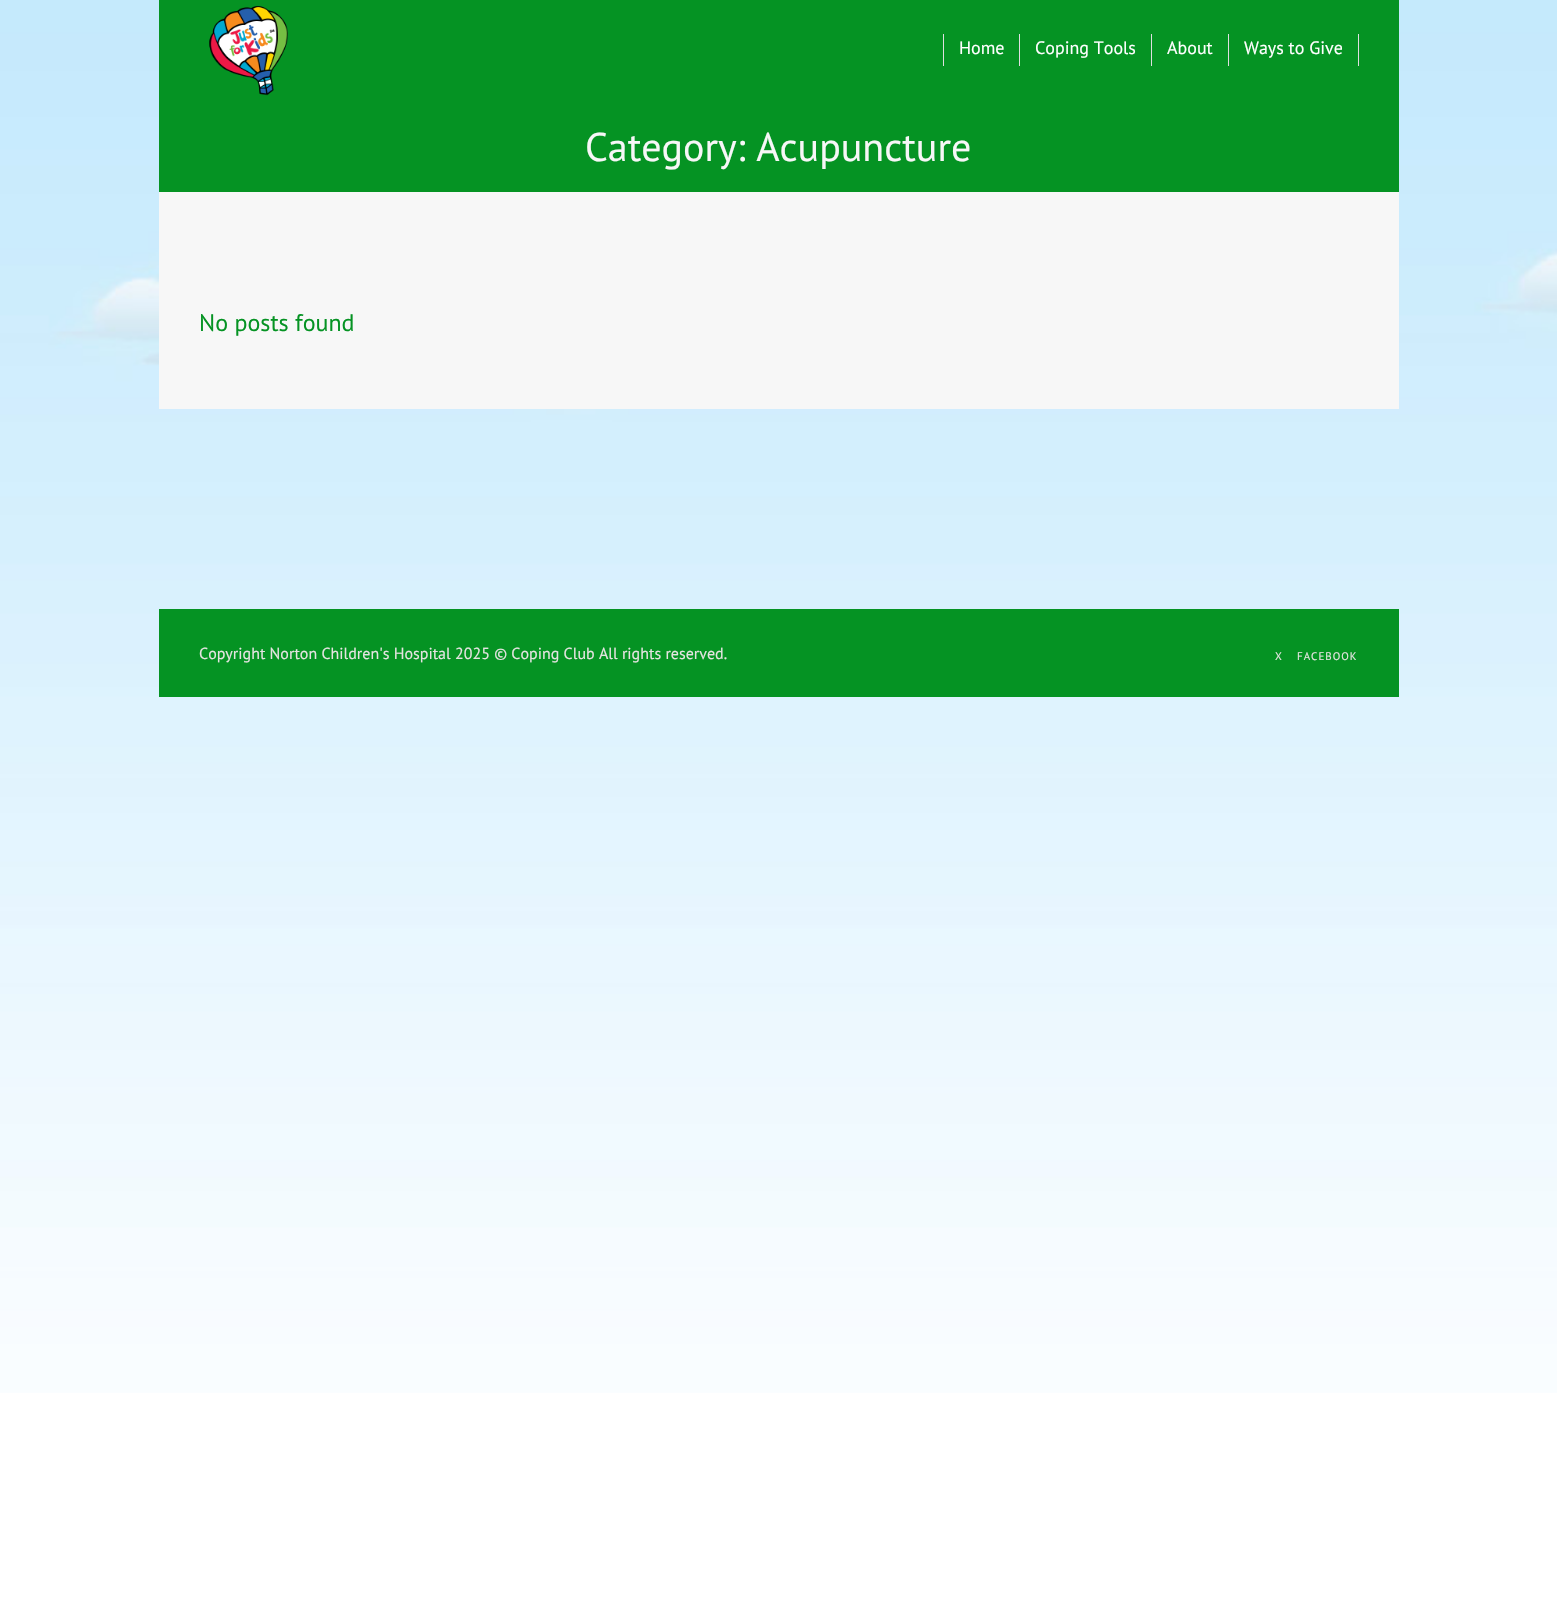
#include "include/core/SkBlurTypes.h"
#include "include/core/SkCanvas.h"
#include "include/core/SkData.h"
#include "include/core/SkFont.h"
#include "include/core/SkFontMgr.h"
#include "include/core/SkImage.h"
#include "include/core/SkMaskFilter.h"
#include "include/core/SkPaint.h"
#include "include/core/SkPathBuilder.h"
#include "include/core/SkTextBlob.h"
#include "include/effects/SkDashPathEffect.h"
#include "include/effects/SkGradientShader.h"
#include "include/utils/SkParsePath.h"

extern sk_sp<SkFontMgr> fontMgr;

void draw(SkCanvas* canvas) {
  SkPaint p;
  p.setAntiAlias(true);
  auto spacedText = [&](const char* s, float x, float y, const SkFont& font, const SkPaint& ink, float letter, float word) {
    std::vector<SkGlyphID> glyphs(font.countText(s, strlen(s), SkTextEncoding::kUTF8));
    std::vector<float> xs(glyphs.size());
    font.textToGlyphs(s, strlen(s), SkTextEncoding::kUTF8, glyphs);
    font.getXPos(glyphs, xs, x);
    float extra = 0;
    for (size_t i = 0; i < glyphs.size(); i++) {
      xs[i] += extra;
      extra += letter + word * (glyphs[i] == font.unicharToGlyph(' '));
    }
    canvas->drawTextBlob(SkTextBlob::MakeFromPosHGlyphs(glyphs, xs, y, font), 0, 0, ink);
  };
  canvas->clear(SK_ColorWHITE);
  canvas->drawImageRect(SkImages::DeferredFromEncodedData(SkData::MakeFromFileName("images/1.png")), SkRect::MakeLTRB(0, 0, 1557, 1393), SkSamplingOptions());
  p.setColor(SkColorSetRGB(5, 147, 35));
  canvas->drawRect(SkRect::MakeLTRB(159, 0, 1399, 192), p);
  canvas->drawImageRect(SkImages::DeferredFromEncodedData(SkData::MakeFromFileName("images/2.png")), SkRect::MakeLTRB(209, 5, 288, 96), SkSamplingOptions());
  p.setColor(SkColorSetRGB(223, 223, 223));
  canvas->drawRect(SkRect::MakeLTRB(943, 34, 944, 66), p);
  canvas->drawRect(SkRect::MakeLTRB(1019, 34, 1020, 66), p);
  canvas->drawRect(SkRect::MakeLTRB(1151, 34, 1152, 66), p);
  canvas->drawRect(SkRect::MakeLTRB(1358, 34, 1359, 66), p);
  canvas->drawRect(SkRect::MakeLTRB(1228, 34, 1229, 66), p);
  p.setColor(SkColorSetRGB(247, 247, 247));
  canvas->drawRect(SkRect::MakeLTRB(159, 192, 1399, 409), p);
  p.setColor(SkColorSetRGB(5, 147, 35));
  canvas->drawRect(SkRect::MakeLTRB(159, 609, 1399, 697), p);
  SkFont font1(fontMgr->matchFamilyStyle("PT Sans", SkFontStyle::Normal()), 18);
  font1.setSubpixel(true);
  p.setColor(SK_ColorWHITE);
  canvas->drawString("Home", 959, 54, font1, p);
  canvas->drawString("Coping Tools", 1035, 54, font1, p);
  canvas->drawString("About", 1167, 54, font1, p);
  canvas->drawString("Ways to Give", 1244, 54, font1, p);
  SkFont font2(fontMgr->matchFamilyStyle("PT Sans", SkFontStyle::Normal()), 40);
  font2.setSubpixel(true);
  p.setColor(SkColorSetRGB(247, 247, 247));
  canvas->drawString("Category: Acupuncture", 585, 161, font2, p);
  SkFont font3(fontMgr->matchFamilyStyle("PT Sans", SkFontStyle::Normal()), 24);
  font3.setSubpixel(true);
  p.setColor(SkColorSetRGB(5, 147, 35));
  canvas->drawString("No posts found", 199, 331, font3, p);
  SkFont font4(fontMgr->matchFamilyStyle("PT Sans", SkFontStyle::Normal()), 16);
  font4.setSubpixel(true);
  p.setColor(SkColorSetRGB(229, 228, 225));
  canvas->drawString("Copyright Norton Children's Hospital 2025 © Coping Club All rights reserved.", 199, 659, font4, p);
  SkFont font5(fontMgr->matchFamilyStyle("PT Sans", SkFontStyle::Normal()), 11);
  font5.setSubpixel(true);
  spacedText("X", 1275, 660, font5, p, 1, 0);
  spacedText("FACEBOOK", 1297, 660, font5, p, 1, 0);
}
